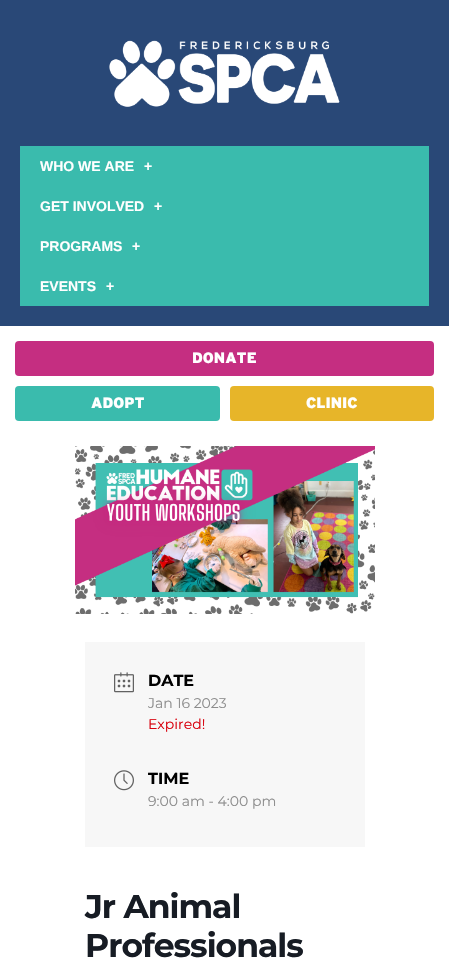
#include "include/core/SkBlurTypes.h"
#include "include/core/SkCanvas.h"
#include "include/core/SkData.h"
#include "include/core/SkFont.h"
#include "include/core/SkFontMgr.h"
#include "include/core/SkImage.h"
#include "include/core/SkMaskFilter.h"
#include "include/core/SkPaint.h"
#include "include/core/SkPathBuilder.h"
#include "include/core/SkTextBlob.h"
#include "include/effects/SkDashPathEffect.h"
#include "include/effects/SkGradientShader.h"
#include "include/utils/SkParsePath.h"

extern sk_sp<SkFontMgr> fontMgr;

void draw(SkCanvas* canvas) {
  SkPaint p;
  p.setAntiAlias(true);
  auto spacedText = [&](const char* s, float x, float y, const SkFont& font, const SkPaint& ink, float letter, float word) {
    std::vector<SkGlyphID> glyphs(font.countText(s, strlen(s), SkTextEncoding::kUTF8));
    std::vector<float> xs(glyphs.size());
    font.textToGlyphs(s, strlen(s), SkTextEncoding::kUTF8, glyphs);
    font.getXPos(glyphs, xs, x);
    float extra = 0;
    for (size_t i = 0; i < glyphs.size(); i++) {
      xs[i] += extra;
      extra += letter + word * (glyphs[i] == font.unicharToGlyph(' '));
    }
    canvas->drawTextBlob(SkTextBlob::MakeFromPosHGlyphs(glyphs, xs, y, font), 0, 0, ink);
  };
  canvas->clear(SK_ColorWHITE);
  p.setColor(SkColorSetRGB(41, 72, 119));
  canvas->drawRect(SkRect::MakeLTRB(0, 0, 449, 326), p);
  canvas->drawImageRect(SkImages::DeferredFromEncodedData(SkData::MakeFromFileName("images/1.png")), SkRect::MakeLTRB(109, 40, 340, 107), SkSamplingOptions());
  p.setColor(SkColorSetRGB(58, 187, 173));
  canvas->drawRect(SkRect::MakeLTRB(20, 146, 429, 306), p);
  p.setColor(SkColorSetRGB(197, 46, 129));
  canvas->drawRoundRect(SkRect::MakeLTRB(15, 341, 434, 376), 4, 4, p);
  p.setColor(SkColorSetRGB(58, 187, 173));
  canvas->drawRoundRect(SkRect::MakeLTRB(15, 386, 220, 421), 4, 4, p);
  p.setColor(SkColorSetRGB(231, 181, 41));
  canvas->drawRoundRect(SkRect::MakeLTRB(230, 386, 434, 421), 4, 4, p);
  canvas->drawImageRect(SkImages::DeferredFromEncodedData(SkData::MakeFromFileName("images/2.png")), SkRect::MakeLTRB(75, 446, 375, 614), SkSamplingOptions());
  p.setColor(SkColorSetRGB(247, 247, 247));
  canvas->drawRect(SkRect::MakeLTRB(85, 642, 365, 847), p);
  canvas->drawImageRect(SkImages::DeferredFromEncodedData(SkData::MakeFromFileName("images/3.png")), SkRect::MakeLTRB(114, 672, 134, 693), SkSamplingOptions());
  canvas->drawImageRect(SkImages::DeferredFromEncodedData(SkData::MakeFromFileName("images/4.png")), SkRect::MakeLTRB(114, 770, 134, 791), SkSamplingOptions());
  SkFont font1(fontMgr->matchFamilyStyle("Liberation Sans", SkFontStyle::Bold()), 14);
  font1.setSubpixel(true);
  p.setColor(SK_ColorWHITE);
  canvas->drawString("WHO WE ARE", 40, 171, font1, p);
  canvas->drawString("+", 144, 171, font1, p);
  canvas->drawString("GET INVOLVED", 40, 211, font1, p);
  canvas->drawString("+", 154, 211, font1, p);
  canvas->drawString("PROGRAMS", 40, 251, font1, p);
  canvas->drawString("+", 132, 251, font1, p);
  canvas->drawString("EVENTS", 40, 291, font1, p);
  canvas->drawString("+", 106, 291, font1, p);
  SkFont font2(fontMgr->matchFamilyStyle("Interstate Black", SkFontStyle(900, SkFontStyle::kNormal_Width, SkFontStyle::kUpright_Slant)), 15);
  font2.setSubpixel(true);
  canvas->drawString("DONATE", 192, 363, font2, p);
  canvas->drawString("ADOPT", 91, 408, font2, p);
  canvas->drawString("CLINIC", 306, 408, font2, p);
  SkFont font3(fontMgr->matchFamilyStyle("Montserrat", SkFontStyle::Bold()), 16);
  font3.setSubpixel(true);
  p.setColor(SK_ColorBLACK);
  canvas->drawString("DATE", 148, 686, font3, p);
  SkFont font4(fontMgr->matchFamilyStyle("Montserrat", SkFontStyle::Normal()), 14);
  font4.setSubpixel(true);
  p.setColor(SkColorSetRGB(141, 141, 141));
  canvas->drawString("Jan 16 2023", 148, 708, font4, p);
  p.setColor(SkColorSetRGB(216, 0, 12));
  canvas->drawString("Expired!", 148, 729, font4, p);
  p.setColor(SK_ColorBLACK);
  canvas->drawString("TIME", 148, 784, font3, p);
  p.setColor(SkColorSetRGB(141, 141, 141));
  canvas->drawString("9:00 am - 4:00 pm", 148, 806, font4, p);
  SkFont font5(fontMgr->matchFamilyStyle("Montserrat", SkFontStyle::Bold()), 33);
  font5.setSubpixel(true);
  p.setColor(SkColorSetRGB(23, 28, 36));
  spacedText("Jr Animal", 85, 918, font5, p, -1, 0);
  spacedText("Professionals", 85, 957, font5, p, -1, 0);
}
